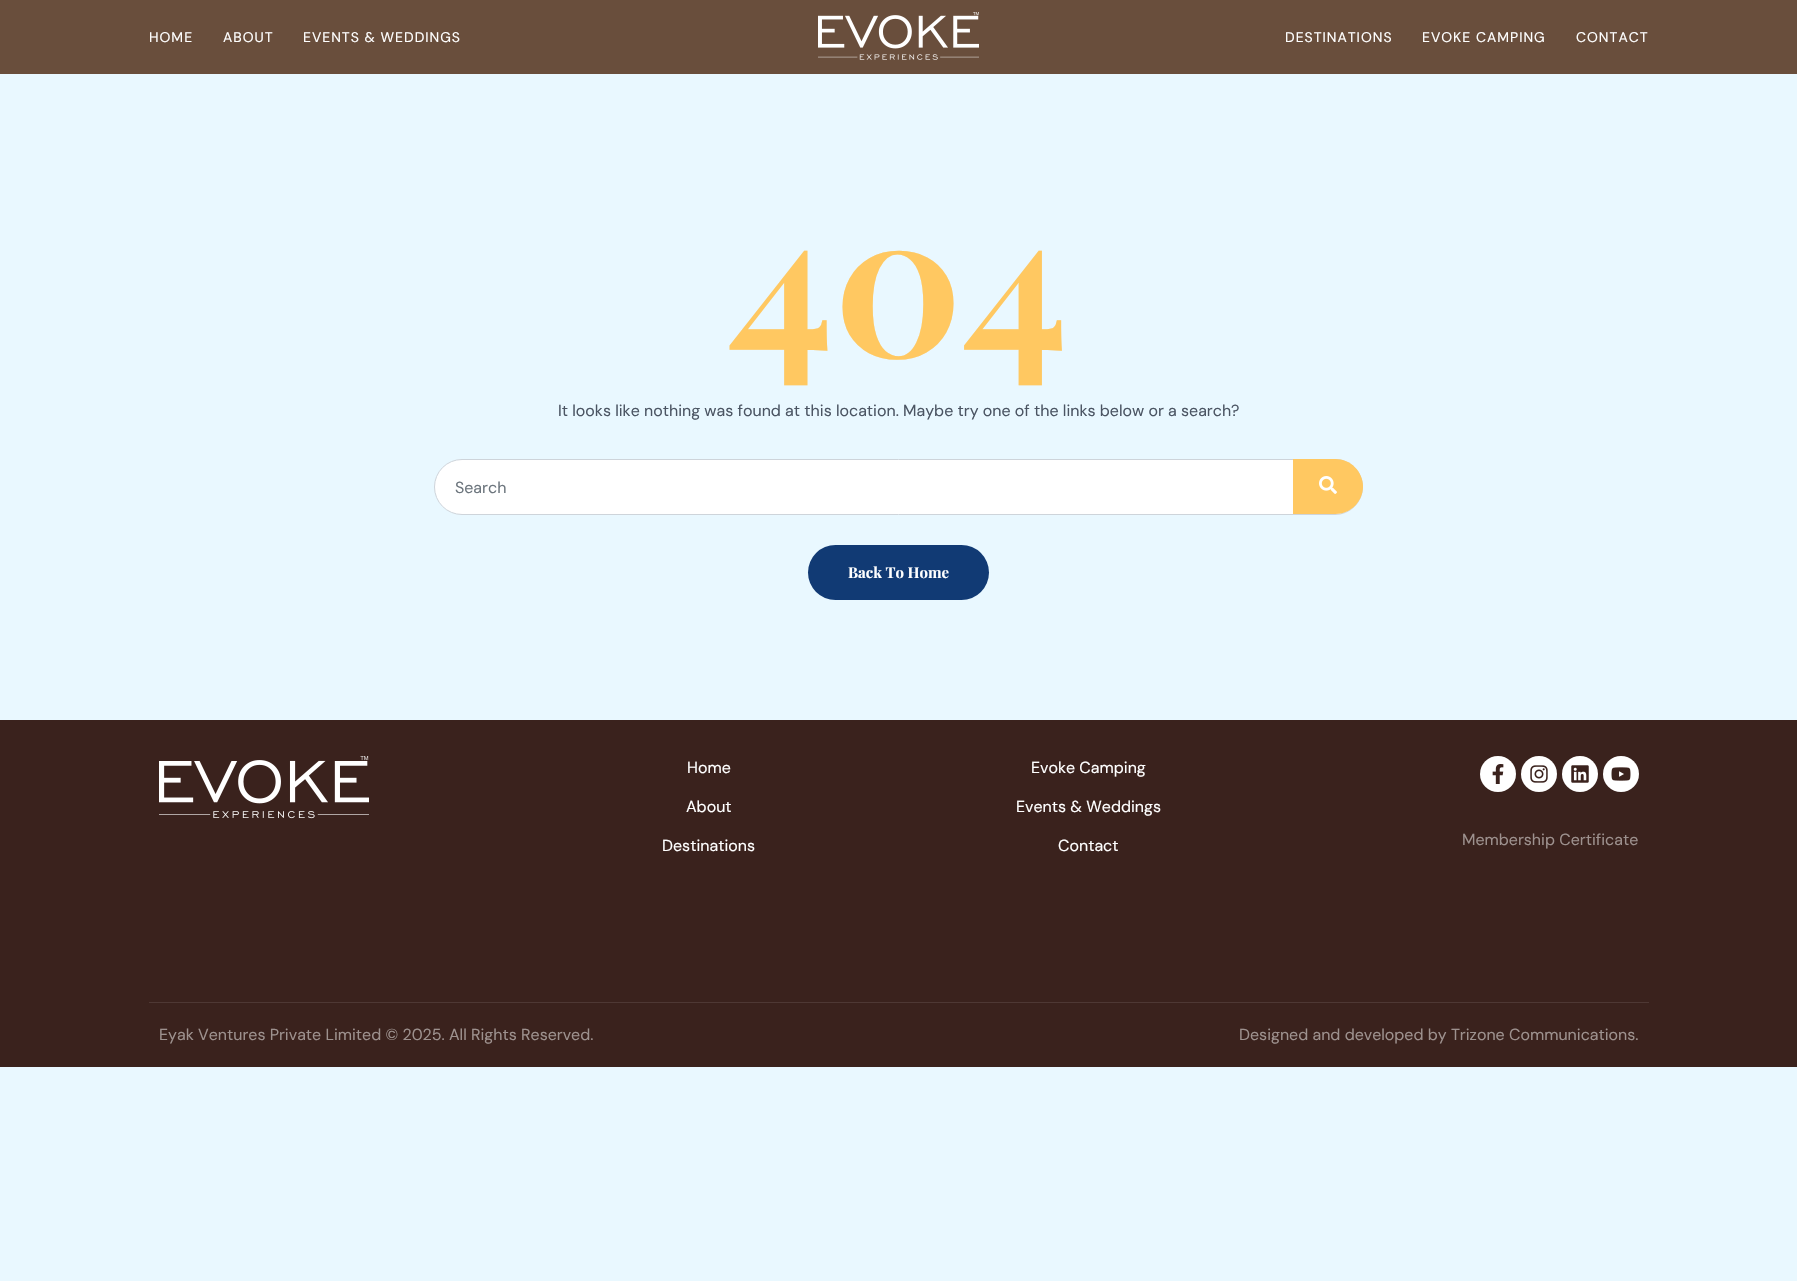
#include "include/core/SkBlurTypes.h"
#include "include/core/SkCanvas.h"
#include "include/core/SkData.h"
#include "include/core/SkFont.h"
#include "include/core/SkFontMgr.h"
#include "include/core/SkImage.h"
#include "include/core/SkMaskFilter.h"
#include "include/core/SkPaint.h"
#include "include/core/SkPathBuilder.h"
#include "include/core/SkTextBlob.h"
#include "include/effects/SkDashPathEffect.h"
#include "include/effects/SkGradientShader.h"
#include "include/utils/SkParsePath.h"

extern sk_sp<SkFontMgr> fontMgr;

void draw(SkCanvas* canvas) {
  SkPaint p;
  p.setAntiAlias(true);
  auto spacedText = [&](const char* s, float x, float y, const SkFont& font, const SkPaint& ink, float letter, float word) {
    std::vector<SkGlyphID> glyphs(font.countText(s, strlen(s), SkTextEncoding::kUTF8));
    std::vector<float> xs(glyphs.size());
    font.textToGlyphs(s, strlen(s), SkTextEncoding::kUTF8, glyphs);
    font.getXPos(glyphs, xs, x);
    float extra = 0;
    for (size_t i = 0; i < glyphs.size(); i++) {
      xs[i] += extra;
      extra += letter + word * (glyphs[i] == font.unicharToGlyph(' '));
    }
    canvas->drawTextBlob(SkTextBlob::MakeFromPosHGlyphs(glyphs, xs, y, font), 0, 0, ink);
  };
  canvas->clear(SkColorSetRGB(233, 248, 255));
  p.setColor(SkColorSetRGB(105, 78, 60));
  canvas->drawRect(SkRect::MakeLTRB(0, 0, 1797, 74), p);
  canvas->drawImageRect(SkImages::DeferredFromEncodedData(SkData::MakeFromFileName("images/1.png")), SkRect::MakeLTRB(818, 12, 979, 60), SkSamplingOptions());
  p.setColor(SK_ColorWHITE);
  canvas->drawRoundRect(SkRect::MakeLTRB(434.5f, 459.5f, 1362.5f, 514.5f), 27.5f, 27.5f, p);
  p.setStyle(SkPaint::kStroke_Style);
  p.setStrokeWidth(1);
  p.setColor(SkColorSetRGB(206, 212, 218));
  canvas->drawRoundRect(SkRect::MakeLTRB(434.5f, 459.5f, 1362.5f, 514.5f), 27.5f, 27.5f, p);
  p.setStyle(SkPaint::kFill_Style);
  p.setColor(SkColorSetRGB(255, 200, 97));
  canvas->drawPath(SkPathBuilder().moveTo(1293, 459).lineTo(1335.5f, 459).cubicTo(1350.5f, 459, 1363, 471.5f, 1363, 486.5f).cubicTo(1363, 501.5f, 1350.5f, 514, 1335.5f, 514).lineTo(1293, 514).close().detach(), p);
  canvas->drawImageRect(SkImages::DeferredFromEncodedData(SkData::MakeFromFileName("images/2.png")), SkRect::MakeLTRB(1319, 476, 1337, 494), SkSamplingOptions());
  p.setColor(SkColorSetRGB(17, 58, 116));
  canvas->drawRoundRect(SkRect::MakeLTRB(808, 545, 989, 600), 27.5f, 27.5f, p);
  p.setColor(SkColorSetRGB(58, 34, 29));
  canvas->drawRect(SkRect::MakeLTRB(0, 720, 1797, 1067), p);
  canvas->drawImageRect(SkImages::DeferredFromEncodedData(SkData::MakeFromFileName("images/3.png")), SkRect::MakeLTRB(159, 756, 369, 819), SkSamplingOptions());
  p.setColor(SK_ColorWHITE);
  canvas->drawCircle(1498, 774, 18, p);
  canvas->drawImageRect(SkImages::DeferredFromEncodedData(SkData::MakeFromFileName("images/4.png")), SkRect::MakeLTRB(1492, 764, 1504, 784), SkSamplingOptions());
  canvas->drawCircle(1539, 774, 18, p);
  canvas->drawImageRect(SkImages::DeferredFromEncodedData(SkData::MakeFromFileName("images/5.png")), SkRect::MakeLTRB(1530, 765, 1548, 783), SkSamplingOptions());
  canvas->drawCircle(1580, 774, 18, p);
  canvas->drawImageRect(SkImages::DeferredFromEncodedData(SkData::MakeFromFileName("images/6.png")), SkRect::MakeLTRB(1571, 765, 1589, 783), SkSamplingOptions());
  canvas->drawCircle(1621, 774, 18, p);
  canvas->drawImageRect(SkImages::DeferredFromEncodedData(SkData::MakeFromFileName("images/7.png")), SkRect::MakeLTRB(1611, 767, 1631, 781), SkSamplingOptions());
  p.setColor(SkColorSetRGB(78, 56, 52));
  canvas->drawRect(SkRect::MakeLTRB(149, 1002, 1649, 1003), p);
  SkFont font1(fontMgr->matchFamilyStyle("DM Sans", SkFontStyle::Normal()), 14);
  font1.setSubpixel(true);
  p.setColor(SK_ColorWHITE);
  spacedText("HOME", 149, 42, font1, p, 1, 0);
  spacedText("ABOUT", 223, 42, font1, p, 1, 0);
  spacedText("EVENTS & WEDDINGS", 303, 42, font1, p, 1, 0);
  spacedText("DESTINATIONS", 1285, 42, font1, p, 1, 0);
  spacedText("EVOKE CAMPING", 1422, 42, font1, p, 1, 0);
  spacedText("CONTACT", 1576, 42, font1, p, 1, 0);
  SkFont font2(fontMgr->matchFamilyStyle("Playfair Display", SkFontStyle::Bold()), 200);
  font2.setSubpixel(true);
  p.setColor(SkColorSetRGB(255, 200, 97));
  canvas->drawString("404", 728, 357, font2, p);
  SkFont font3(fontMgr->matchFamilyStyle("DM Sans", SkFontStyle::Normal()), 16);
  font3.setSubpixel(true);
  p.setColor(SkColorSetRGB(75, 85, 99));
  canvas->drawString("It looks like nothing was found at this location. Maybe try one of the links below or a search?", 558, 416, font3, p);
  p.setColor(SkColorSetRGB(108, 117, 125));
  canvas->drawString("Search", 455, 493, font3, p);
  SkFont font4(fontMgr->matchFamilyStyle("Playfair Display", SkFontStyle::Bold()), 15);
  font4.setSubpixel(true);
  p.setColor(SK_ColorWHITE);
  canvas->drawString("Back To Home", 848, 578, font4, p);
  canvas->drawString("Home", 687, 773, font3, p);
  canvas->drawString("About", 686, 812, font3, p);
  canvas->drawString("Destinations", 662, 851, font3, p);
  canvas->drawString("Evoke Camping", 1031, 773, font3, p);
  canvas->drawString("Events & Weddings", 1016, 812, font3, p);
  canvas->drawString("Contact", 1058, 851, font3, p);
  p.setColor(SkColorSetRGB(157, 145, 142));
  canvas->drawString("Membership Certificate", 1462, 845, font3, p);
  canvas->drawString("Eyak Ventures Private Limited © 2025. All Rights Reserved.", 159, 1040, font3, p);
  canvas->drawString("Designed and developed by Trizone Communications.", 1239, 1040, font3, p);
}
